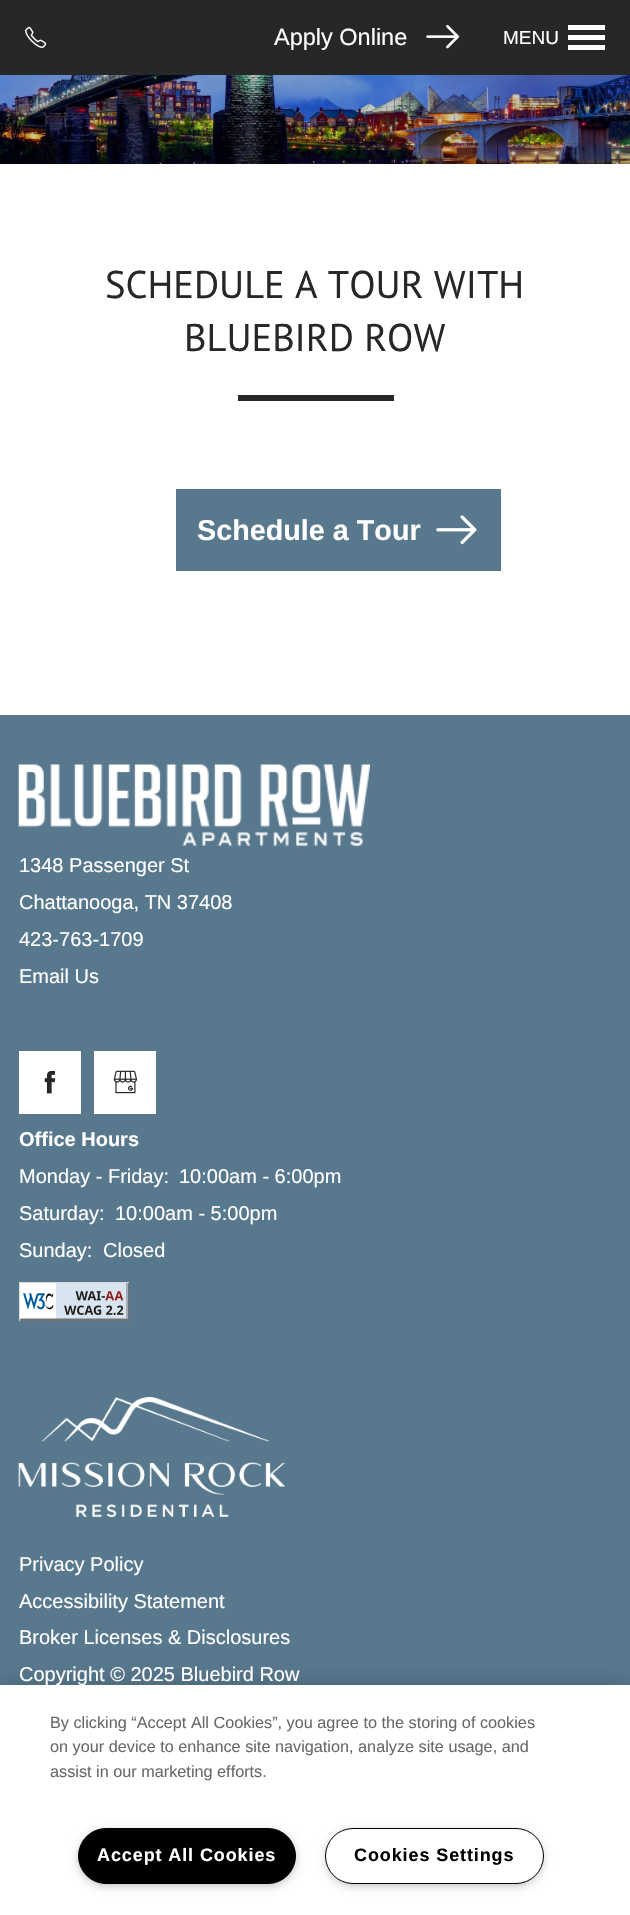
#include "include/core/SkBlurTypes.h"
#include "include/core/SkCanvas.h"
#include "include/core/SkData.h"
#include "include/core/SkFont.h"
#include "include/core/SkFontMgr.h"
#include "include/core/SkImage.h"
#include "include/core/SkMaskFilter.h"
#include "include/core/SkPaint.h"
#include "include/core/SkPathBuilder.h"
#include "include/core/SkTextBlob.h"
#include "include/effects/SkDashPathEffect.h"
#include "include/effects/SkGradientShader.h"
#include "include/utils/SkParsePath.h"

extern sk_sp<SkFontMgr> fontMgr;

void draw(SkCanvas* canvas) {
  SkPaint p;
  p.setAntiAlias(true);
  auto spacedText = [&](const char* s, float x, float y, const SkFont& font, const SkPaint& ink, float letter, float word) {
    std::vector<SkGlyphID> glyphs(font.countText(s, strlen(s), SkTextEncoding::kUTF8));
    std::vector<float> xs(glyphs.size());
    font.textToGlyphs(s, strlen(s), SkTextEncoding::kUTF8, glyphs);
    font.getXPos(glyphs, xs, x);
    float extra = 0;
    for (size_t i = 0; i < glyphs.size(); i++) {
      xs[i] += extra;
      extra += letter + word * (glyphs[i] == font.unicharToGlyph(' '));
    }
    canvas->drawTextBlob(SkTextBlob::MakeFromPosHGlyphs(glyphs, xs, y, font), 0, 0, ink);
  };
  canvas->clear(SK_ColorWHITE);
  p.setColor(SkColorSetRGB(37, 39, 41));
  canvas->drawRect(SkRect::MakeLTRB(0, 0, 630, 75), p);
  canvas->drawImageRect(SkImages::DeferredFromEncodedData(SkData::MakeFromFileName("images/1.png")), SkRect::MakeLTRB(25, 26, 47, 48), SkSamplingOptions());
  canvas->drawImageRect(SkImages::DeferredFromEncodedData(SkData::MakeFromFileName("images/2.png")), SkRect::MakeLTRB(426, 24, 460, 49), SkSamplingOptions());
  p.setColor(SK_ColorWHITE);
  canvas->drawRect(SkRect::MakeLTRB(568, 25, 605, 30), p);
  canvas->drawRect(SkRect::MakeLTRB(568, 35, 605, 40), p);
  canvas->drawRect(SkRect::MakeLTRB(568, 45, 605, 50), p);
  canvas->drawImageRect(SkImages::DeferredFromEncodedData(SkData::MakeFromFileName("images/3.png")), SkRect::MakeLTRB(0, 75, 630, 164), SkSamplingOptions());
  p.setColor(SkColorSetRGB(37, 39, 41));
  canvas->drawRect(SkRect::MakeLTRB(238, 395, 394, 401), p);
  p.setColor(SkColorSetRGB(88, 120, 142));
  canvas->drawRect(SkRect::MakeLTRB(176, 489, 501, 571), p);
  canvas->drawImageRect(SkImages::DeferredFromEncodedData(SkData::MakeFromFileName("images/4.png")), SkRect::MakeLTRB(436, 515, 477, 545), SkSamplingOptions());
  canvas->drawRect(SkRect::MakeLTRB(0, 715, 630, 1685), p);
  canvas->drawImageRect(SkImages::DeferredFromEncodedData(SkData::MakeFromFileName("images/5.png")), SkRect::MakeLTRB(18, 764, 370, 846), SkSamplingOptions());
  p.setColor(SK_ColorWHITE);
  canvas->drawRect(SkRect::MakeLTRB(19, 1051, 81, 1114), p);
  canvas->drawImageRect(SkImages::DeferredFromEncodedData(SkData::MakeFromFileName("images/6.png")), SkRect::MakeLTRB(44, 1070, 56, 1094), SkSamplingOptions());
  canvas->drawRect(SkRect::MakeLTRB(94, 1051, 156, 1114), p);
  canvas->drawImageRect(SkImages::DeferredFromEncodedData(SkData::MakeFromFileName("images/7.png")), SkRect::MakeLTRB(113, 1070, 137, 1094), SkSamplingOptions());
  canvas->drawImageRect(SkImages::DeferredFromEncodedData(SkData::MakeFromFileName("images/8.png")), SkRect::MakeLTRB(19, 1282, 129, 1321), SkSamplingOptions());
  canvas->drawImageRect(SkImages::DeferredFromEncodedData(SkData::MakeFromFileName("images/9.png")), SkRect::MakeLTRB(18, 1397, 285, 1517), SkSamplingOptions());
  p.setColor(SkColorSetARGB(51, 0, 0, 0));
  p.setMaskFilter(SkMaskFilter::MakeBlur(kNormal_SkBlurStyle, 11));
  canvas->drawRect(SkRect::MakeLTRB(0, 1685, 630, 1915), p);
  p.setMaskFilter(nullptr);
  p.setColor(SK_ColorWHITE);
  canvas->drawRect(SkRect::MakeLTRB(0, 1685, 630, 1915), p);
  p.setColor(SkColorSetRGB(153, 153, 153));
  p.setMaskFilter(SkMaskFilter::MakeBlur(kNormal_SkBlurStyle, 6));
  canvas->drawRoundRect(SkRect::MakeLTRB(81, 1834, 293, 1883), 24.5f, 24.5f, p);
  p.setMaskFilter(nullptr);
  p.setColor(SK_ColorBLACK);
  canvas->drawRoundRect(SkRect::MakeLTRB(78.5f, 1828.5f, 295.5f, 1883.5f), 27.5f, 27.5f, p);
  p.setStyle(SkPaint::kStroke_Style);
  p.setStrokeWidth(1);
  canvas->drawRoundRect(SkRect::MakeLTRB(78.5f, 1828.5f, 295.5f, 1883.5f), 27.5f, 27.5f, p);
  p.setStyle(SkPaint::kFill_Style);
  p.setColor(SkColorSetRGB(153, 153, 153));
  p.setMaskFilter(SkMaskFilter::MakeBlur(kNormal_SkBlurStyle, 6));
  canvas->drawRoundRect(SkRect::MakeLTRB(329, 1834, 540, 1883), 24.5f, 24.5f, p);
  p.setMaskFilter(nullptr);
  p.setColor(SK_ColorWHITE);
  canvas->drawRoundRect(SkRect::MakeLTRB(325.5f, 1828.5f, 543.5f, 1883.5f), 27.5f, 27.5f, p);
  p.setStyle(SkPaint::kStroke_Style);
  p.setColor(SK_ColorBLACK);
  canvas->drawRoundRect(SkRect::MakeLTRB(325.5f, 1828.5f, 543.5f, 1883.5f), 27.5f, 27.5f, p);
  SkFont font1(fontMgr->matchFamilyStyle("Liberation Sans", SkFontStyle::Normal()), 23.5f);
  font1.setSubpixel(true);
  p.setStyle(SkPaint::kFill_Style);
  p.setColor(SK_ColorWHITE);
  canvas->drawString("Apply Online", 274, 45, font1, p);
  SkFont font2(fontMgr->matchFamilyStyle("Liberation Sans", SkFontStyle::Normal()), 19);
  font2.setSubpixel(true);
  canvas->drawString("MENU", 503, 44, font2, p);
  SkFont font3(fontMgr->matchFamilyStyle("PT Sans", SkFontStyle::Normal()), 38.5f);
  font3.setSubpixel(true);
  p.setColor(SkColorSetRGB(37, 39, 41));
  canvas->drawString("SCHEDULE A TOUR WITH", 105, 298, font3, p);
  canvas->drawString("BLUEBIRD ROW", 184, 351, font3, p);
  SkFont font4(fontMgr->matchFamilyStyle("Liberation Sans", SkFontStyle::Bold()), 28.75f);
  font4.setSubpixel(true);
  p.setColor(SK_ColorWHITE);
  canvas->drawString("Schedule a Tour", 197, 540, font4, p);
  SkFont font5(fontMgr->matchFamilyStyle("Liberation Sans", SkFontStyle::Normal()), 20);
  font5.setSubpixel(true);
  canvas->drawString("1348 Passenger St", 19, 872, font5, p);
  canvas->drawString("Chattanooga, TN 37408", 19, 909, font5, p);
  canvas->drawString("423-763-1709", 19, 946, font5, p);
  canvas->drawString("Email Us", 19, 983, font5, p);
  SkFont font6(fontMgr->matchFamilyStyle("Liberation Sans", SkFontStyle::Bold()), 20);
  font6.setSubpixel(true);
  canvas->drawString("Office Hours", 19, 1146, font6, p);
  canvas->drawString("Monday - Friday:", 19, 1183, font5, p);
  canvas->drawString("10:00am - 6:00pm", 179, 1183, font5, p);
  canvas->drawString("Saturday:", 19, 1220, font5, p);
  canvas->drawString("10:00am - 5:00pm", 115, 1220, font5, p);
  canvas->drawString("Sunday:", 19, 1257, font5, p);
  canvas->drawString("Closed", 103, 1257, font5, p);
  canvas->drawString("Privacy Policy", 19, 1571, font5, p);
  canvas->drawString("Accessibility Statement", 19, 1608, font5, p);
  canvas->drawString("Broker Licenses & Disclosures", 19, 1644, font5, p);
  canvas->drawString("Copyright © 2025 Bluebird Row", 19, 1681, font5, p);
  SkFont font7(fontMgr->matchFamilyStyle("Liberation Sans", SkFontStyle::Normal()), 16.25f);
  font7.setSubpixel(true);
  p.setColor(SkColorSetRGB(105, 105, 105));
  canvas->drawString("By clicking “Accept All Cookies”, you agree to the storing of cookies", 50, 1728, font7, p);
  canvas->drawString("on your device to enhance site navigation, analyze site usage, and", 50, 1752, font7, p);
  canvas->drawString("assist in our marketing efforts.", 50, 1777, font7, p);
  SkFont font8(fontMgr->matchFamilyStyle("Liberation Sans", SkFontStyle::Bold()), 18);
  font8.setSubpixel(true);
  p.setColor(SK_ColorWHITE);
  spacedText("Accept All Cookies", 97, 1861, font8, p, 0.9f, 0);
  p.setColor(SK_ColorBLACK);
  spacedText("Cookies Settings", 354, 1861, font8, p, 0.9f, 0);
}
